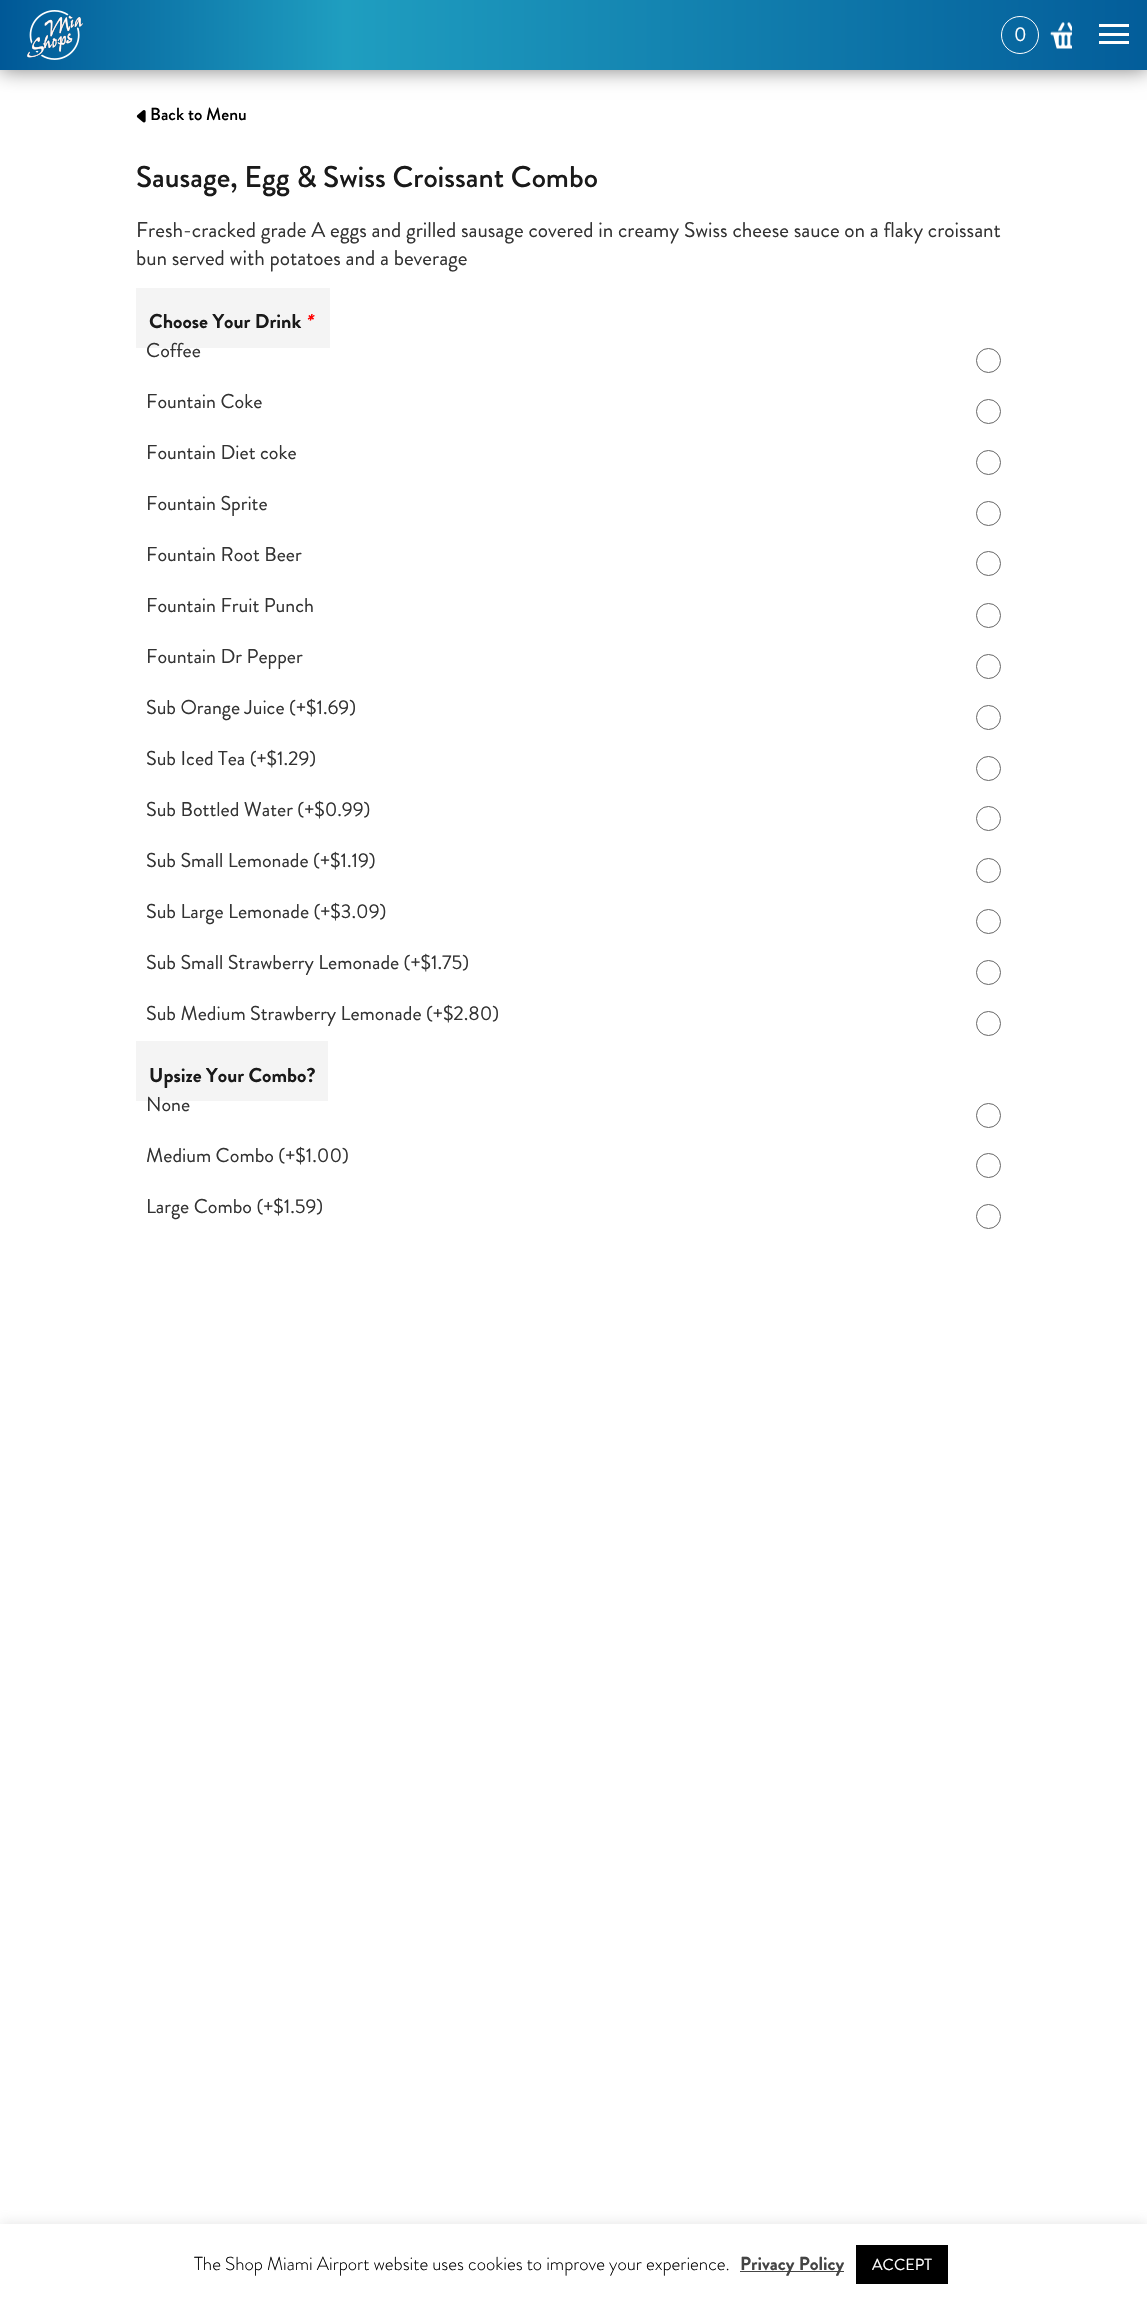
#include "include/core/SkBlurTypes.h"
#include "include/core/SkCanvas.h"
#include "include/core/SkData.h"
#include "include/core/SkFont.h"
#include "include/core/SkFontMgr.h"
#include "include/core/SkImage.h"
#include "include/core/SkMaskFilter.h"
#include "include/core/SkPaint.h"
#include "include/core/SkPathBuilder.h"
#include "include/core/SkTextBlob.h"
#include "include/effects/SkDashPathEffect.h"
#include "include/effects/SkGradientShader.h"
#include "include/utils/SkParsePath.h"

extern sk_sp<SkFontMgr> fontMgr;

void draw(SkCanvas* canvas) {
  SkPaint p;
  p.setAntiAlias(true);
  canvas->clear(SK_ColorWHITE);
  p.setColor(SkColorSetARGB(128, 0, 0, 0));
  p.setMaskFilter(SkMaskFilter::MakeBlur(kNormal_SkBlurStyle, 10));
  canvas->drawRect(SkRect::MakeLTRB(0, 0, 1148, 70), p);
  p.setMaskFilter(nullptr);
  {
    const SkColor colors[] = {SkColorSetRGB(3, 93, 154), SkColorSetRGB(31, 158, 192), SkColorSetRGB(0, 88, 151)};
    const float stops[] = {0, 0.7f, 1};
    const SkPoint ends[] = {{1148, 35}, {0, 35}};
    p.setShader(SkGradientShader::MakeLinear(ends, colors, stops, 3, SkTileMode::kClamp));
    p.setAlpha(255);
  }
  canvas->drawRect(SkRect::MakeLTRB(0, 0, 1147, 70), p);
  canvas->drawImageRect(SkImages::DeferredFromEncodedData(SkData::MakeFromFileName("images/1.png")), SkRect::MakeLTRB(27, 10, 83, 60), SkSamplingOptions());
  p.setStyle(SkPaint::kStroke_Style);
  p.setStrokeWidth(1);
  p.setShader(nullptr);
  p.setColor(SK_ColorWHITE);
  canvas->drawCircle(1020, 35, 18.5f, p);
  canvas->drawImageRect(SkImages::DeferredFromEncodedData(SkData::MakeFromFileName("images/2.png")), SkRect::MakeLTRB(1050, 22, 1072, 49), SkSamplingOptions());
  p.setStyle(SkPaint::kFill_Style);
  canvas->drawRect(SkRect::MakeLTRB(1099, 33, 1129, 36), p);
  canvas->drawRect(SkRect::MakeLTRB(1099, 24, 1129, 27), p);
  canvas->drawRect(SkRect::MakeLTRB(1099, 41, 1129, 44), p);
  canvas->drawImageRect(SkImages::DeferredFromEncodedData(SkData::MakeFromFileName("images/3.png")), SkRect::MakeLTRB(136, 110, 146, 123), SkSamplingOptions());
  p.setColor(SkColorSetRGB(244, 244, 244));
  canvas->drawRect(SkRect::MakeLTRB(136, 288, 330, 348), p);
  p.setStyle(SkPaint::kStroke_Style);
  p.setColor(SkColorSetRGB(102, 102, 102));
  canvas->drawCircle(988.5f, 360.5f, 12, p);
  canvas->drawCircle(988.5f, 411.5f, 12, p);
  canvas->drawCircle(988.5f, 462.5f, 12, p);
  canvas->drawCircle(988.5f, 513.5f, 12, p);
  canvas->drawCircle(988.5f, 563.5f, 12, p);
  canvas->drawCircle(988.5f, 615.5f, 12, p);
  canvas->drawCircle(988.5f, 666.5f, 12, p);
  canvas->drawCircle(988.5f, 717.5f, 12, p);
  canvas->drawCircle(988.5f, 768.5f, 12, p);
  canvas->drawCircle(988.5f, 818.5f, 12, p);
  canvas->drawCircle(988.5f, 870.5f, 12, p);
  canvas->drawCircle(988.5f, 921.5f, 12, p);
  canvas->drawCircle(988.5f, 972.5f, 12, p);
  canvas->drawCircle(988.5f, 1023.5f, 12, p);
  p.setStyle(SkPaint::kFill_Style);
  p.setColor(SkColorSetRGB(244, 244, 244));
  canvas->drawRect(SkRect::MakeLTRB(136, 1041, 328, 1101), p);
  p.setStyle(SkPaint::kStroke_Style);
  p.setColor(SkColorSetRGB(102, 102, 102));
  canvas->drawCircle(988.5f, 1115.5f, 12, p);
  canvas->drawCircle(988.5f, 1165.5f, 12, p);
  canvas->drawCircle(988.5f, 1216.5f, 12, p);
  p.setStyle(SkPaint::kFill_Style);
  p.setColor(SkColorSetARGB(77, 172, 171, 171));
  p.setMaskFilter(SkMaskFilter::MakeBlur(kNormal_SkBlurStyle, 6));
  canvas->drawRect(SkRect::MakeLTRB(0, 2223, 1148, 2304), p);
  p.setMaskFilter(nullptr);
  p.setColor(SK_ColorWHITE);
  canvas->drawRect(SkRect::MakeLTRB(0, 2224, 1147, 2305), p);
  p.setColor(SkColorSetRGB(68, 68, 68));
  canvas->drawRect(SkRect::MakeLTRB(740, 2271, 844, 2272), p);
  p.setColor(SK_ColorBLACK);
  canvas->drawRect(SkRect::MakeLTRB(856, 2245, 948, 2284), p);
  SkFont font1(fontMgr->matchFamilyStyle("Brandon Grotesque", SkFontStyle::Normal()), 20);
  font1.setSubpixel(true);
  p.setColor(SK_ColorWHITE);
  canvas->drawString("0", 1014, 41, font1, p);
  SkFont font2(fontMgr->matchFamilyStyle("Brandon Grotesque", SkFontStyle(500, SkFontStyle::kNormal_Width, SkFontStyle::kUpright_Slant)), 17.5f);
  font2.setSubpixel(true);
  p.setColor(SK_ColorBLACK);
  canvas->drawString("Back to Menu", 150, 120, font2, p);
  SkFont font3(fontMgr->matchFamilyStyle("Brandon Grotesque", SkFontStyle(500, SkFontStyle::kNormal_Width, SkFontStyle::kUpright_Slant)), 30);
  font3.setSubpixel(true);
  p.setColor(SkColorSetRGB(26, 26, 26));
  canvas->drawString("Sausage, Egg & Swiss Croissant Combo", 136, 187, font3, p);
  SkFont font4(fontMgr->matchFamilyStyle("Brandon Grotesque", SkFontStyle::Normal()), 21.25f);
  font4.setSubpixel(true);
  p.setColor(SkColorSetRGB(51, 51, 51));
  canvas->drawString("Fresh-cracked grade A eggs and grilled sausage covered in creamy Swiss cheese sauce on a flaky croissant", 136, 237, font4, p);
  canvas->drawString("bun served with potatoes and a beverage", 136, 265, font4, p);
  SkFont font5(fontMgr->matchFamilyStyle("Brandon Grotesque", SkFontStyle::Bold()), 20);
  font5.setSubpixel(true);
  p.setColor(SkColorSetRGB(26, 26, 26));
  canvas->drawString("Choose Your Drink", 149, 328, font5, p);
  SkFont font6(fontMgr->matchFamilyStyle("Brandon Grotesque", SkFontStyle::BoldItalic()), 20);
  font6.setSubpixel(true);
  p.setColor(SkColorSetRGB(255, 0, 0));
  canvas->drawString("*", 305, 328, font6, p);
  p.setColor(SkColorSetRGB(51, 51, 51));
  canvas->drawString("Coffee", 146, 357, font1, p);
  canvas->drawString("Fountain Coke", 146, 408, font1, p);
  canvas->drawString("Fountain Diet coke", 146, 459, font1, p);
  canvas->drawString("Fountain Sprite", 146, 510, font1, p);
  canvas->drawString("Fountain Root Beer", 146, 561, font1, p);
  canvas->drawString("Fountain Fruit Punch", 146, 612, font1, p);
  canvas->drawString("Fountain Dr Pepper", 146, 663, font1, p);
  canvas->drawString("Sub Orange Juice (+$1.69)", 146, 714, font1, p);
  canvas->drawString("Sub Iced Tea (+$1.29)", 146, 765, font1, p);
  canvas->drawString("Sub Bottled Water (+$0.99)", 146, 816, font1, p);
  canvas->drawString("Sub Small Lemonade (+$1.19)", 146, 867, font1, p);
  canvas->drawString("Sub Large Lemonade (+$3.09)", 146, 918, font1, p);
  canvas->drawString("Sub Small Strawberry Lemonade (+$1.75)", 146, 969, font1, p);
  canvas->drawString("Sub Medium Strawberry Lemonade (+$2.80)", 146, 1020, font1, p);
  p.setColor(SkColorSetRGB(26, 26, 26));
  canvas->drawString("Upsize Your Combo?", 149, 1082, font5, p);
  p.setColor(SkColorSetRGB(51, 51, 51));
  canvas->drawString("None", 146, 1111, font1, p);
  canvas->drawString("Medium Combo (+$1.00)", 146, 1162, font1, p);
  canvas->drawString("Large Combo (+$1.59)", 146, 1213, font1, p);
  SkFont font7(fontMgr->matchFamilyStyle("Brandon Grotesque", SkFontStyle(300, SkFontStyle::kNormal_Width, SkFontStyle::kUpright_Slant)), 18.75f);
  font7.setSubpixel(true);
  p.setColor(SK_ColorBLACK);
  canvas->drawString("The Shop Miami Airport website uses cookies to improve your experience.", 194, 2270, font7, p);
  SkFont font8(fontMgr->matchFamilyStyle("Brandon Grotesque", SkFontStyle::Bold()), 18.75f);
  font8.setSubpixel(true);
  p.setColor(SkColorSetRGB(68, 68, 68));
  canvas->drawString("Privacy Policy", 740, 2270, font8, p);
  SkFont font9(fontMgr->matchFamilyStyle("Brandon Grotesque", SkFontStyle::Normal()), 16);
  font9.setSubpixel(true);
  p.setColor(SK_ColorWHITE);
  canvas->drawString("ACCEPT", 872, 2270, font9, p);
}
